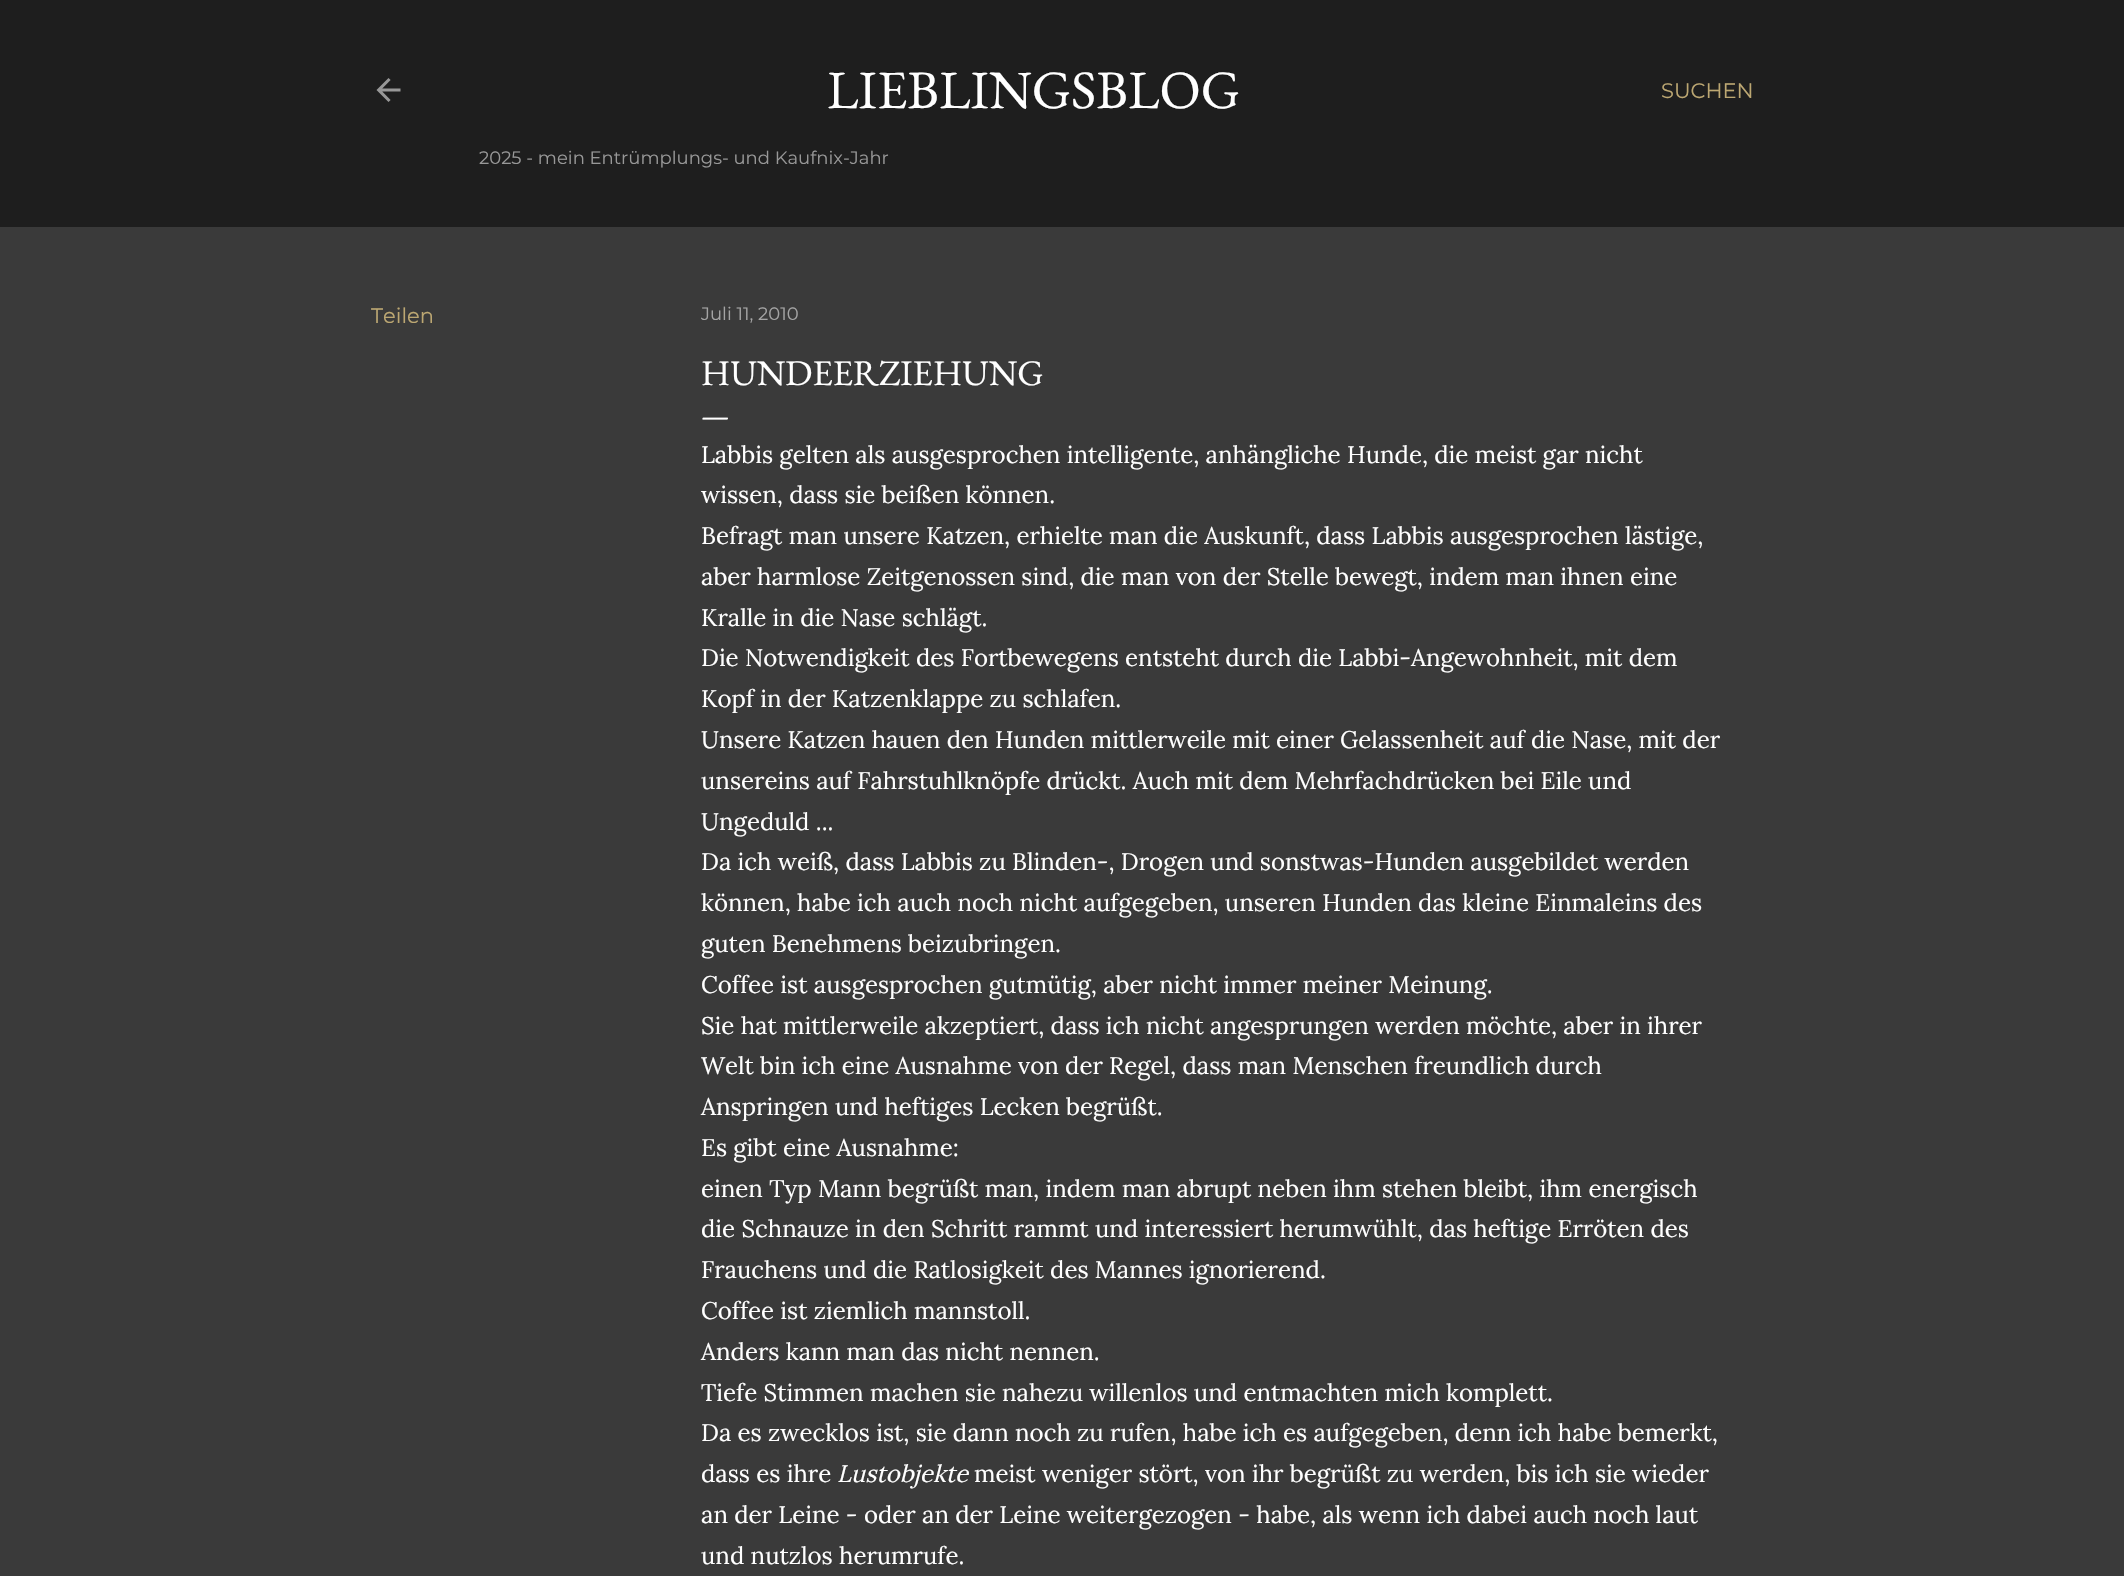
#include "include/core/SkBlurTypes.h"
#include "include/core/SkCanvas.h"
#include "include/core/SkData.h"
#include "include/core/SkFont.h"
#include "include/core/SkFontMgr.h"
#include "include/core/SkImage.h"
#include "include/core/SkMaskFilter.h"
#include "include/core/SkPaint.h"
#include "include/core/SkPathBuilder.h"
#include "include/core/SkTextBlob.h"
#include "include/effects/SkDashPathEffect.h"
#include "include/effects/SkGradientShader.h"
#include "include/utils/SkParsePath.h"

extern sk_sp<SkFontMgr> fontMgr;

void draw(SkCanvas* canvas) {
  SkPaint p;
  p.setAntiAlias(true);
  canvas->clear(SkColorSetRGB(58, 58, 58));
  p.setColor(SkColorSetRGB(30, 30, 30));
  canvas->drawRect(SkRect::MakeLTRB(0, 0, 2124, 227), p);
  canvas->drawImageRect(SkImages::DeferredFromEncodedData(SkData::MakeFromFileName("images/1.png")), SkRect::MakeLTRB(376, 78, 401, 102), SkSamplingOptions());
  SkFont font1(fontMgr->matchFamilyStyle("EB Garamond", SkFontStyle::Normal()), 54);
  font1.setSubpixel(true);
  p.setColor(SK_ColorWHITE);
  canvas->drawString("LIEBLINGSBLOG", 827, 108, font1, p);
  SkFont font2(fontMgr->matchFamilyStyle("Montserrat", SkFontStyle::Normal()), 18);
  font2.setSubpixel(true);
  p.setColor(SkColorSetRGB(152, 152, 152));
  canvas->drawString("2025 - mein Entrümplungs- und Kaufnix-Jahr", 479, 164, font2, p);
  SkFont font3(fontMgr->matchFamilyStyle("Montserrat", SkFontStyle::Normal()), 21);
  font3.setSubpixel(true);
  p.setColor(SkColorSetRGB(188, 167, 114));
  canvas->drawString("SUCHEN", 1661, 98, font3, p);
  canvas->drawString("Teilen", 371, 323, font3, p);
  p.setColor(SkColorSetRGB(164, 164, 164));
  canvas->drawString("Juli 11, 2010", 701, 320, font2, p);
  SkFont font4(fontMgr->matchFamilyStyle("EB Garamond", SkFontStyle::Normal()), 36);
  font4.setSubpixel(true);
  p.setColor(SK_ColorWHITE);
  canvas->drawString("HUNDEERZIEHUNG", 701, 385, font4, p);
  SkFont font5(fontMgr->matchFamilyStyle("EB Garamond", SkFontStyle::Normal()), 30);
  font5.setSubpixel(true);
  canvas->drawString("—", 701, 425, font5, p);
  SkFont font6(fontMgr->matchFamilyStyle("Lora", SkFontStyle::Normal()), 24);
  font6.setSubpixel(true);
  canvas->drawString("Labbis gelten als ausgesprochen intelligente, anhängliche Hunde, die meist gar nicht", 701, 463, font6, p);
  canvas->drawString("wissen, dass sie beißen können.", 701, 503, font6, p);
  canvas->drawString("Befragt man unsere Katzen, erhielte man die Auskunft, dass Labbis ausgesprochen lästige,", 701, 544, font6, p);
  canvas->drawString("aber harmlose Zeitgenossen sind, die man von der Stelle bewegt, indem man ihnen eine", 701, 585, font6, p);
  canvas->drawString("Kralle in die Nase schlägt.", 701, 626, font6, p);
  canvas->drawString("Die Notwendigkeit des Fortbewegens entsteht durch die Labbi-Angewohnheit, mit dem", 701, 666, font6, p);
  canvas->drawString("Kopf in der Katzenklappe zu schlafen.", 701, 707, font6, p);
  canvas->drawString("Unsere Katzen hauen den Hunden mittlerweile mit einer Gelassenheit auf die Nase, mit der", 701, 748, font6, p);
  canvas->drawString("unsereins auf Fahrstuhlknöpfe drückt. Auch mit dem Mehrfachdrücken bei Eile und", 701, 789, font6, p);
  canvas->drawString("Ungeduld ...", 701, 830, font6, p);
  canvas->drawString("Da ich weiß, dass Labbis zu Blinden-, Drogen und sonstwas-Hunden ausgebildet werden", 701, 870, font6, p);
  canvas->drawString("können, habe ich auch noch nicht aufgegeben, unseren Hunden das kleine Einmaleins des", 701, 911, font6, p);
  canvas->drawString("guten Benehmens beizubringen.", 701, 952, font6, p);
  canvas->drawString("Coffee ist ausgesprochen gutmütig, aber nicht immer meiner Meinung.", 701, 993, font6, p);
  canvas->drawString("Sie hat mittlerweile akzeptiert, dass ich nicht angesprungen werden möchte, aber in ihrer", 701, 1034, font6, p);
  canvas->drawString("Welt bin ich eine Ausnahme von der Regel, dass man Menschen freundlich durch", 701, 1074, font6, p);
  canvas->drawString("Anspringen und heftiges Lecken begrüßt.", 701, 1115, font6, p);
  canvas->drawString("Es gibt eine Ausnahme:", 701, 1156, font6, p);
  canvas->drawString("einen Typ Mann begrüßt man, indem man abrupt neben ihm stehen bleibt, ihm energisch", 701, 1197, font6, p);
  canvas->drawString("die Schnauze in den Schritt rammt und interessiert herumwühlt, das heftige Erröten des", 701, 1237, font6, p);
  canvas->drawString("Frauchens und die Ratlosigkeit des Mannes ignorierend.", 701, 1278, font6, p);
  canvas->drawString("Coffee ist ziemlich mannstoll.", 701, 1319, font6, p);
  canvas->drawString("Anders kann man das nicht nennen.", 701, 1360, font6, p);
  canvas->drawString("Tiefe Stimmen machen sie nahezu willenlos und entmachten mich komplett.", 701, 1401, font6, p);
  canvas->drawString("Da es zwecklos ist, sie dann noch zu rufen, habe ich es aufgegeben, denn ich habe bemerkt,", 701, 1441, font6, p);
  canvas->drawString("dass es ihre", 701, 1482, font6, p);
  SkFont font7(fontMgr->matchFamilyStyle("Lora", SkFontStyle::Italic()), 24);
  font7.setSubpixel(true);
  canvas->drawString("Lustobjekte", 837, 1482, font7, p);
  canvas->drawString("meist weniger stört, von ihr begrüßt zu werden, bis ich sie wieder", 974, 1482, font6, p);
  canvas->drawString("an der Leine - oder an der Leine weitergezogen - habe, als wenn ich dabei auch noch laut", 701, 1523, font6, p);
  canvas->drawString("und nutzlos herumrufe.", 701, 1564, font6, p);
}
